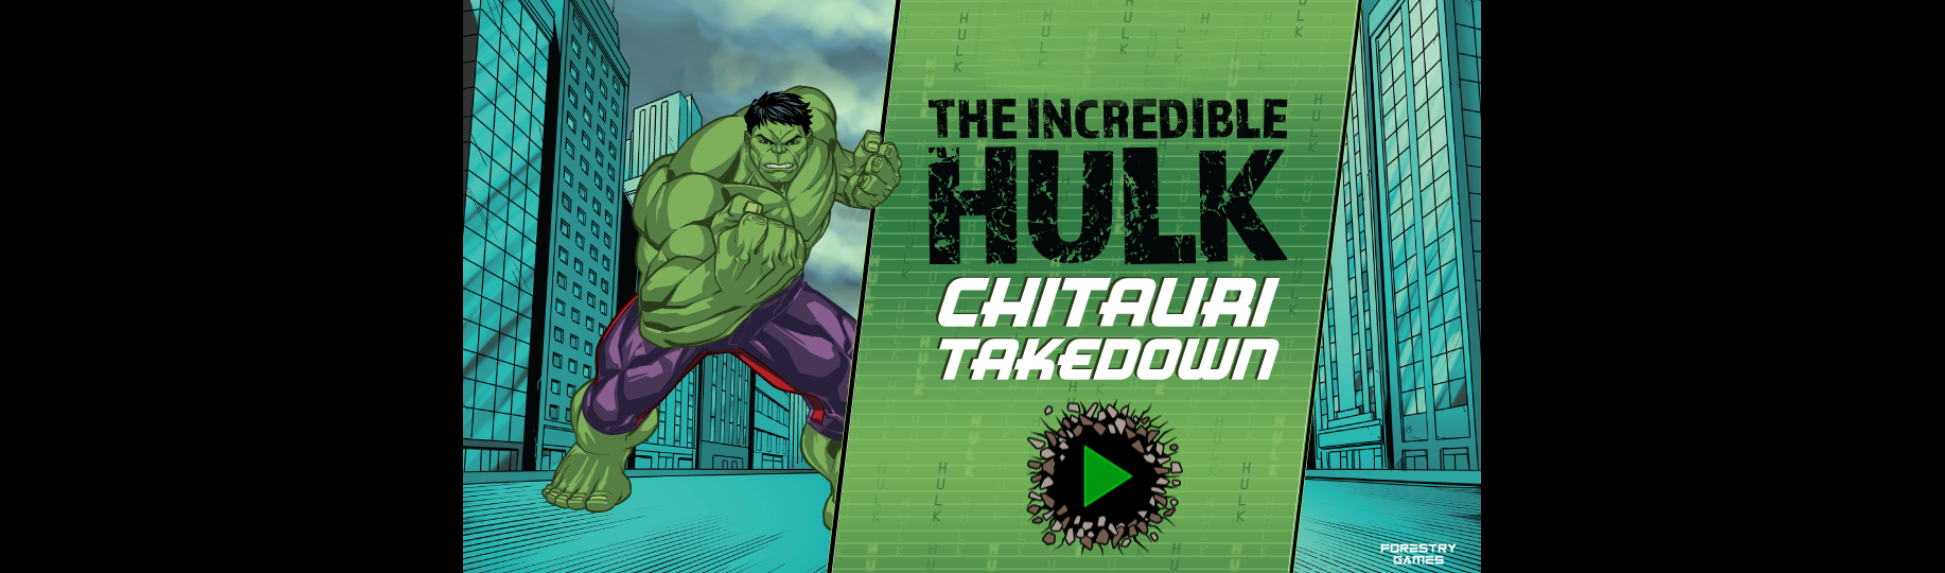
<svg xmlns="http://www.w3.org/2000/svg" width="1945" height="573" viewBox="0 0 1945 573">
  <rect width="100%" height="100%" fill="#000"/>
  <image x="463" y="0" width="1018" height="573" href="images/1.png"/>
</svg>
